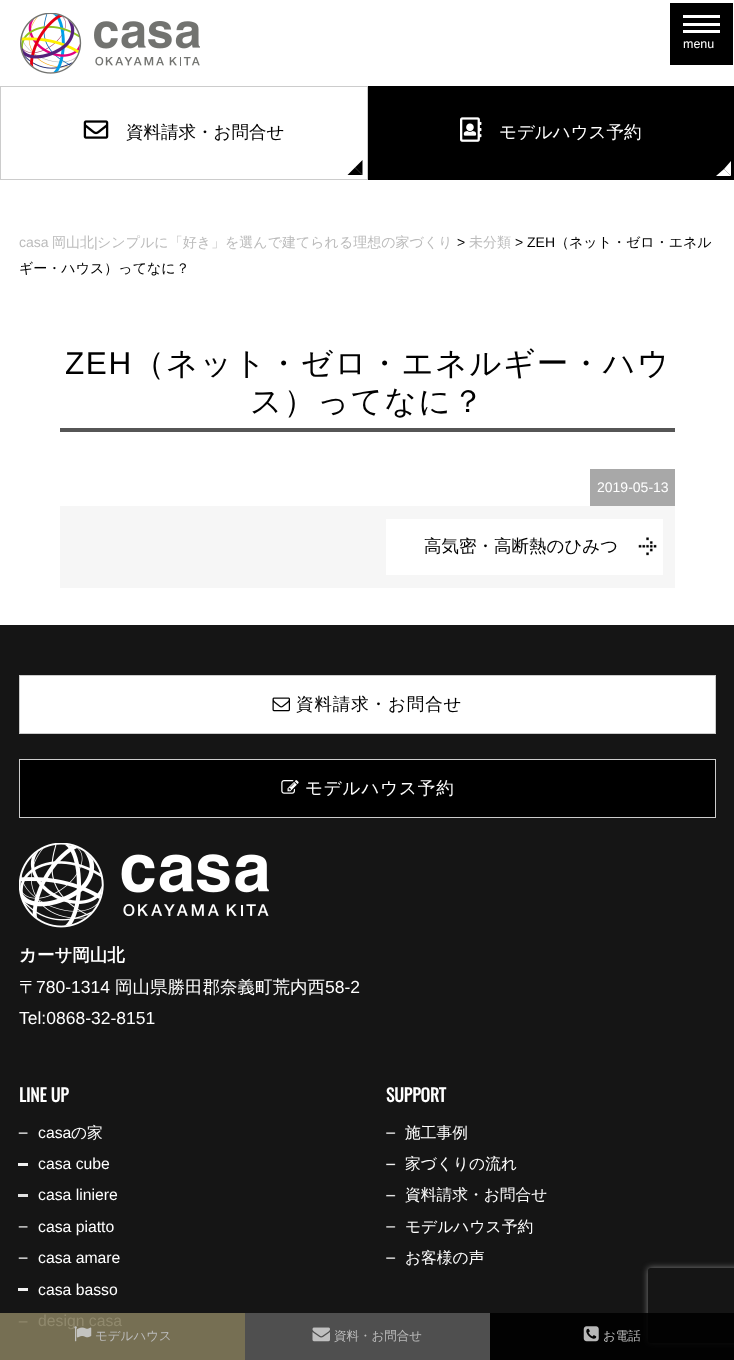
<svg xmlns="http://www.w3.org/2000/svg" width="734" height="1360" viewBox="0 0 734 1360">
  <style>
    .t1 { font: 12.5px Liberation Sans; fill: #fff; }
    .t2 { font: 500 17.5px WenQuanYi Zen Hei; fill: #000; }
    .t3 { font: 500 17.5px WenQuanYi Zen Hei; fill: #fff; }
    .t4 { font: 14px Liberation Sans; fill: #bbb; }
    .t5 { font: 500 14px WenQuanYi Zen Hei; fill: #bbb; }
    .t6 { font: 14px Liberation Sans; fill: #000; }
    .t7 { font: 500 14px WenQuanYi Zen Hei; fill: #000; }
    .t8 { font: 31.5px Liberation Sans; letter-spacing: 1.6px; fill: #000; }
    .t9 { font: 500 31.5px WenQuanYi Zen Hei; letter-spacing: 1.6px; fill: #000; }
    .t10 { font: 14px Liberation Sans; fill: #fff; }
    .t11 { font: 500 17.5px WenQuanYi Zen Hei; letter-spacing: 0.9px; fill: #000; }
    .t12 { font: 500 17.5px WenQuanYi Zen Hei; letter-spacing: 0.9px; fill: #fff; }
    .t13 { font: bold 17.5px WenQuanYi Zen Hei; fill: #fff; }
    .t14 { font: 17.5px Liberation Sans; fill: #fff; }
    .t15 { font: bold 17.5px Oswald; fill: #fff; }
    .t16 { font: 15.75px Liberation Sans; fill: #fff; }
    .t17 { font: 500 15.75px WenQuanYi Zen Hei; fill: #fff; }
    .t18 { font: 15.75px Liberation Sans; fill: #90896d; }
    .t19 { font: 500 12.5px WenQuanYi Zen Hei; fill: #bbb; }
  </style>
  <defs>
    <clipPath id="clip1"><path d="M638 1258H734V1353H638ZM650.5 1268H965.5C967 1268 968 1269 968 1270.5V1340.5C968 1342 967 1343 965.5 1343H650.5C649 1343 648 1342 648 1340.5V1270.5C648 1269 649 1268 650.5 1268Z" clip-rule="evenodd"/></clipPath>
  </defs>
  <rect width="100%" height="100%" fill="#fff"/>
  <image x="20" y="13" width="180" height="61" href="images/1.png"/>
  <rect x="670" y="3" width="63" height="62" fill="#000"/>
  <rect x="683" y="15" width="37" height="3" fill="#fff"/>
  <rect x="683" y="23" width="37" height="3" fill="#fff"/>
  <rect x="683" y="30" width="37" height="3" fill="#fff"/>
  <text x="683" y="48" class="t1">menu</text>
  <rect x="0.5" y="86.5" width="367" height="93" fill="none" stroke="#ccc"/>
  <image x="83" y="120" width="26" height="19" href="images/2.png"/>
  <text x="126" y="138" class="t2">資料請求・お問合せ</text>
  <path d="M362.5 160V175L355 167.5Z" fill="#000"/>
  <path d="M362.5 175H347.5L355 167.5Z" fill="#000"/>
  <rect x="368" y="86" width="366" height="94" fill="#000"/>
  <image x="460" y="117" width="22" height="25" href="images/3.png"/>
  <text x="499" y="138" class="t3">モデルハウス予約</text>
  <path d="M731 161V176L724 169Z" fill="#fff"/>
  <path d="M731 176H716L724 169Z" fill="#fff"/>
  <text x="19" y="247" class="t4">casa</text>
  <text x="52" y="247" class="t5">岡山北</text>
  <text x="94" y="247" class="t4">|</text>
  <text x="97" y="247" class="t5">シンプルに「好き」を選んで建てられる理想の家づくり</text>
  <text x="457" y="247" class="t6">&gt;</text>
  <text x="469" y="247" class="t5">未分類</text>
  <text x="515" y="247" class="t6">&gt; ZEH</text>
  <text x="555" y="247" class="t7">（ネット・ゼロ・エネル</text>
  <text x="19" y="273" class="t7">ギー・ハウス）ってなに？</text>
  <rect x="60" y="428" width="615" height="4" fill="#565656"/>
  <text x="65" y="374" class="t8">ZEH</text>
  <text x="133" y="374" class="t9">（ネット・ゼロ・エネルギー・ハウ</text>
  <text x="250" y="412" class="t9">ス）ってなに？</text>
  <rect x="590" y="469" width="85" height="37" fill="#a8a8a8"/>
  <text x="597" y="492" class="t10">2019-05-13</text>
  <rect x="60" y="506" width="615" height="82" fill="#f6f6f6"/>
  <rect x="386" y="519" width="277" height="56" fill="#fff"/>
  <image x="638" y="537" width="19" height="19" href="images/4.png"/>
  <text x="424" y="552" class="t2">高気密・高断熱のひみつ</text>
  <rect x="0" y="625" width="734" height="735" fill="#151515"/>
  <rect x="0" y="1313" width="245" height="47" fill="#766f53"/>
  <rect x="19.5" y="675.5" width="696" height="58" fill="#fff" stroke="#ccc"/>
  <image x="272" y="697" width="18" height="15" href="images/5.png"/>
  <text x="296" y="710" class="t11">資料請求・お問合せ</text>
  <rect x="19.5" y="759.5" width="696" height="58" fill="#000" stroke="#ccc"/>
  <image x="281" y="780" width="18" height="14" href="images/6.png"/>
  <text x="305" y="794" class="t12">モデルハウス予約</text>
  <image x="19" y="843" width="250" height="85" href="images/7.png"/>
  <text x="19" y="961" class="t13">カーサ岡山北</text>
  <text x="19" y="993" class="t3">〒</text>
  <text x="36" y="993" class="t14">780-1314</text>
  <text x="115" y="993" class="t3">岡山県勝田郡奈義町荒内西</text>
  <text x="325" y="993" class="t14">58-2</text>
  <text x="19" y="1024" class="t14">Tel:0868-32-8151</text>
  <text x="19" y="1102" class="t15">LINE UP</text>
  <image x="18" y="1132" width="10" height="2" href="images/8.png"/>
  <text x="38" y="1138" class="t16">casa</text>
  <text x="71" y="1138" class="t17">の家</text>
  <text x="38" y="1169" class="t16">casa cube</text>
  <rect x="18" y="1163" width="10" height="3" fill="#f1f1f1"/>
  <text x="38" y="1200" class="t16">casa liniere</text>
  <rect x="18" y="1194" width="10" height="3" fill="#e1e1e1"/>
  <image x="18" y="1226" width="10" height="2" href="images/9.png"/>
  <text x="38" y="1232" class="t16">casa piatto</text>
  <image x="18" y="1257" width="10" height="2" href="images/8.png"/>
  <text x="38" y="1263" class="t16">casa amare</text>
  <text x="38" y="1295" class="t16">casa basso</text>
  <rect x="18" y="1288" width="10" height="3" fill="#f1f1f1"/>
  <image x="18" y="1321" width="10" height="2" href="images/10.png"/>
  <text x="38" y="1326" class="t18">design casa</text>
  <text x="386" y="1102" class="t15">SUPPORT</text>
  <image x="386" y="1132" width="10" height="2" href="images/11.png"/>
  <text x="405" y="1138" class="t17">施工事例</text>
  <image x="386" y="1163" width="10" height="3" href="images/12.png"/>
  <text x="405" y="1169" class="t17">家づくりの流れ</text>
  <image x="386" y="1194" width="10" height="3" href="images/13.png"/>
  <text x="405" y="1200" class="t17">資料請求・お問合せ</text>
  <image x="386" y="1226" width="10" height="2" href="images/14.png"/>
  <text x="405" y="1232" class="t17">モデルハウス予約</text>
  <image x="386" y="1257" width="10" height="2" href="images/11.png"/>
  <text x="405" y="1263" class="t17">お客様の声</text>
  <g clip-path="url(#clip1)">
    <rect x="648" y="1268" width="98" height="75" rx="2.5" fill="#808080" filter="blur(3px)"/>
  </g>
  <image x="74" y="1326" width="18" height="16" href="images/15.png"/>
  <text x="95" y="1340" class="t19">モデルハウス</text>
  <rect x="245" y="1313" width="245" height="47" fill="#4f4f4f"/>
  <image x="312" y="1327" width="18" height="15" href="images/16.png"/>
  <text x="334" y="1340" class="t19">資料・お問合せ</text>
  <rect x="490" y="1313" width="244" height="47" fill="#000000e3"/>
  <image x="583" y="1326" width="16" height="16" href="images/17.png"/>
  <text x="603" y="1340" class="t19">お電話</text>
</svg>
